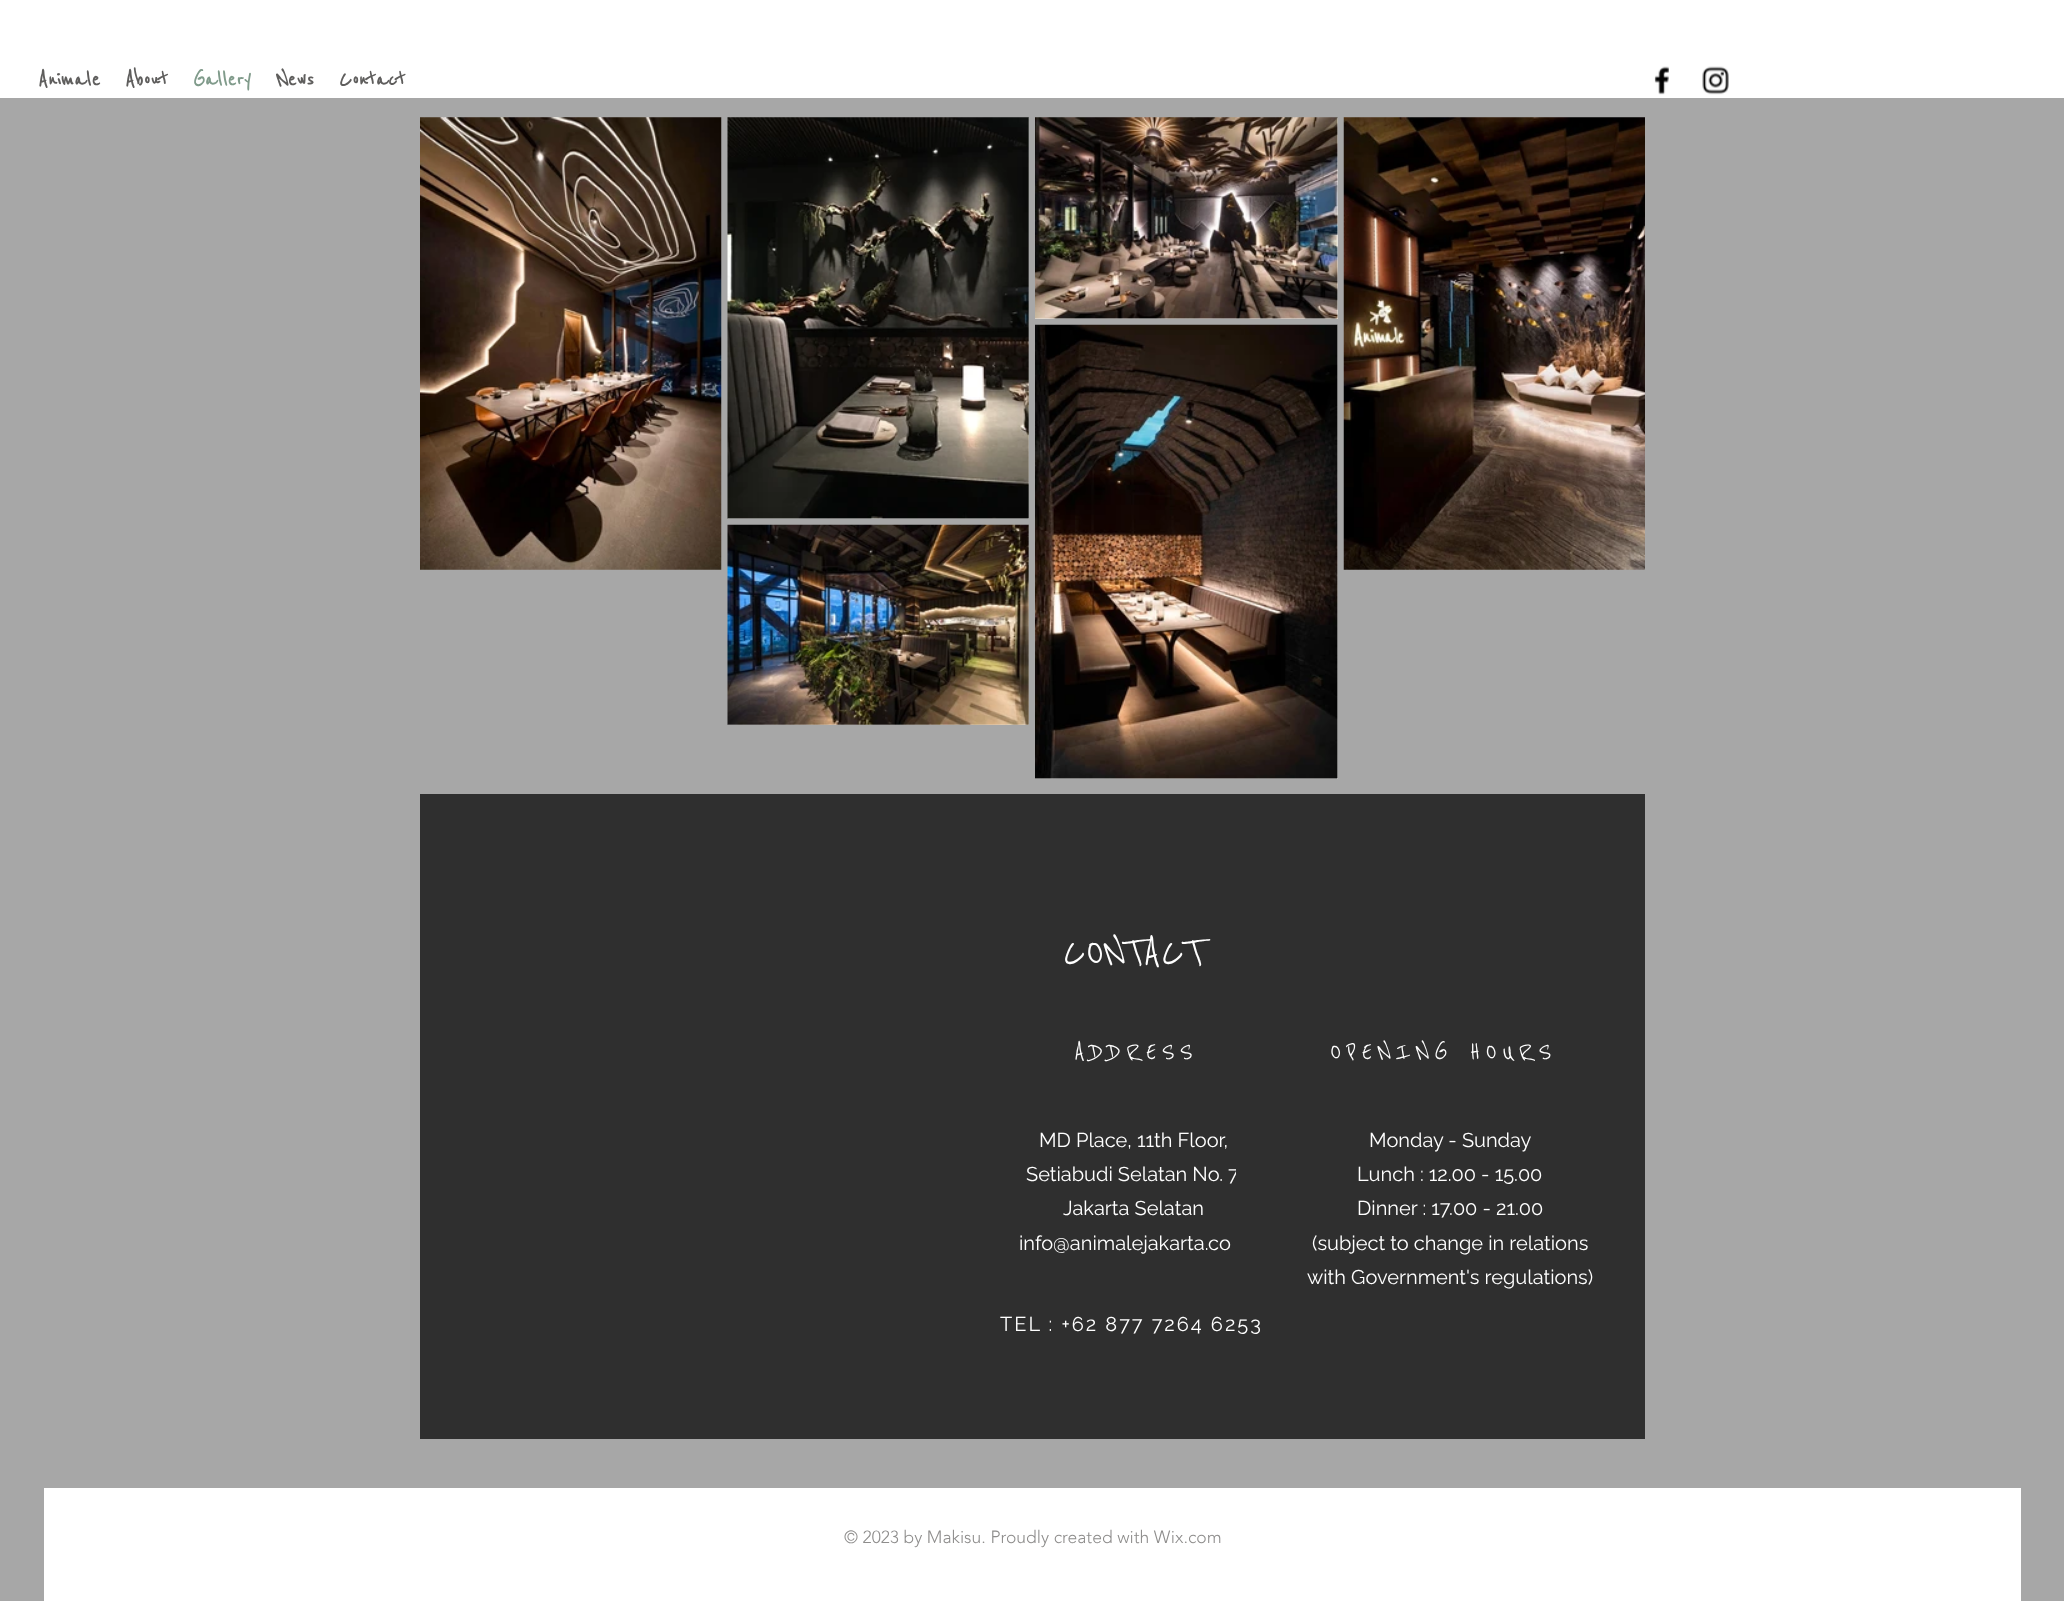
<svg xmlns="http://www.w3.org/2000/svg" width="2064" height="1601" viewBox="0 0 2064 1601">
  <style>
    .t1 { font: bold 25px Reenie Beanie; fill: #5f5e5d; }
    .t2 { font: bold 25px Reenie Beanie; fill: #809b8b; }
    .t3 { font: 500 44px Reenie Beanie; fill: #fff; }
    .t4 { font: 500 27.5px Reenie Beanie; letter-spacing: 5.5px; fill: #fff; }
    .t5 { font: 20px Raleway; fill: #fff; }
    .t6 { font: 20px Raleway; letter-spacing: 2px; fill: #fff; }
    .t7 { font: 300 17.5px 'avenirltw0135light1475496'; fill: #8e8d8c; }
  </style>
  <rect width="100%" height="100%" fill="#a7a7a7"/>
  <rect x="0" y="0" width="2064" height="98" fill="#fff"/>
  <image x="1654" y="66" width="15" height="29" href="images/1.png"/>
  <image x="1702" y="66" width="27" height="29" href="images/2.png"/>
  <text x="38" y="86" class="t1">Animale</text>
  <text x="125" y="86" class="t1">About</text>
  <text x="193" y="86" class="t2">Gallery</text>
  <text x="276" y="86" class="t1">News</text>
  <text x="339" y="86" class="t1">Contact</text>
  <image x="420" y="117" width="302" height="453" href="images/3.png"/>
  <rect x="728" y="118" width="301" height="401" fill="#ebebe8"/>
  <image x="727" y="117" width="302" height="402" href="images/4.png"/>
  <rect x="1035" y="118" width="303" height="201" fill="#ebebe8"/>
  <image x="1035" y="117" width="303" height="202" href="images/5.png"/>
  <image x="1343" y="117" width="302" height="453" href="images/6.png"/>
  <rect x="728" y="525" width="301" height="200" fill="#ebebe8"/>
  <image x="727" y="524" width="302" height="201" href="images/7.png"/>
  <rect x="1035" y="325" width="303" height="454" fill="#ebebe8"/>
  <image x="1035" y="324" width="303" height="455" href="images/8.png"/>
  <rect x="420" y="794" width="816" height="645" fill="#2f2f2f"/>
  <text x="1063" y="964" class="t3">CONTACT</text>
  <text x="1074" y="1059" class="t4">ADDRESS</text>
  <text x="1039" y="1147" class="t5">MD Place, 11th Floor,</text>
  <text x="1026" y="1181" class="t5">Setiabudi Selatan No. 7</text>
  <text x="1063" y="1215" class="t5">Jakarta Selatan</text>
  <text x="1019" y="1250" class="t5">info@animalejakarta.co</text>
  <rect x="1236" y="794" width="409" height="645" fill="#2f2f2f"/>
  <text x="1330" y="1059" class="t4">OPENING HOURS</text>
  <text x="1369" y="1147" class="t5">Monday - Sunday</text>
  <text x="1357" y="1181" class="t5">Lunch : 12.00 - 15.00</text>
  <text x="1357" y="1215" class="t5">Dinner : 17.00 - 21.00</text>
  <text x="1312" y="1250" class="t5">(subject to change in relations</text>
  <text x="1307" y="1284" class="t5">with Government's regulations)</text>
  <text x="1000" y="1331" class="t6">TEL : +62 877 7264 6253</text>
  <rect x="44" y="1488" width="1977" height="113" fill="#fff"/>
  <text x="844" y="1543" class="t7">© 2023 by Makisu. Proudly created with Wix.com</text>
</svg>
